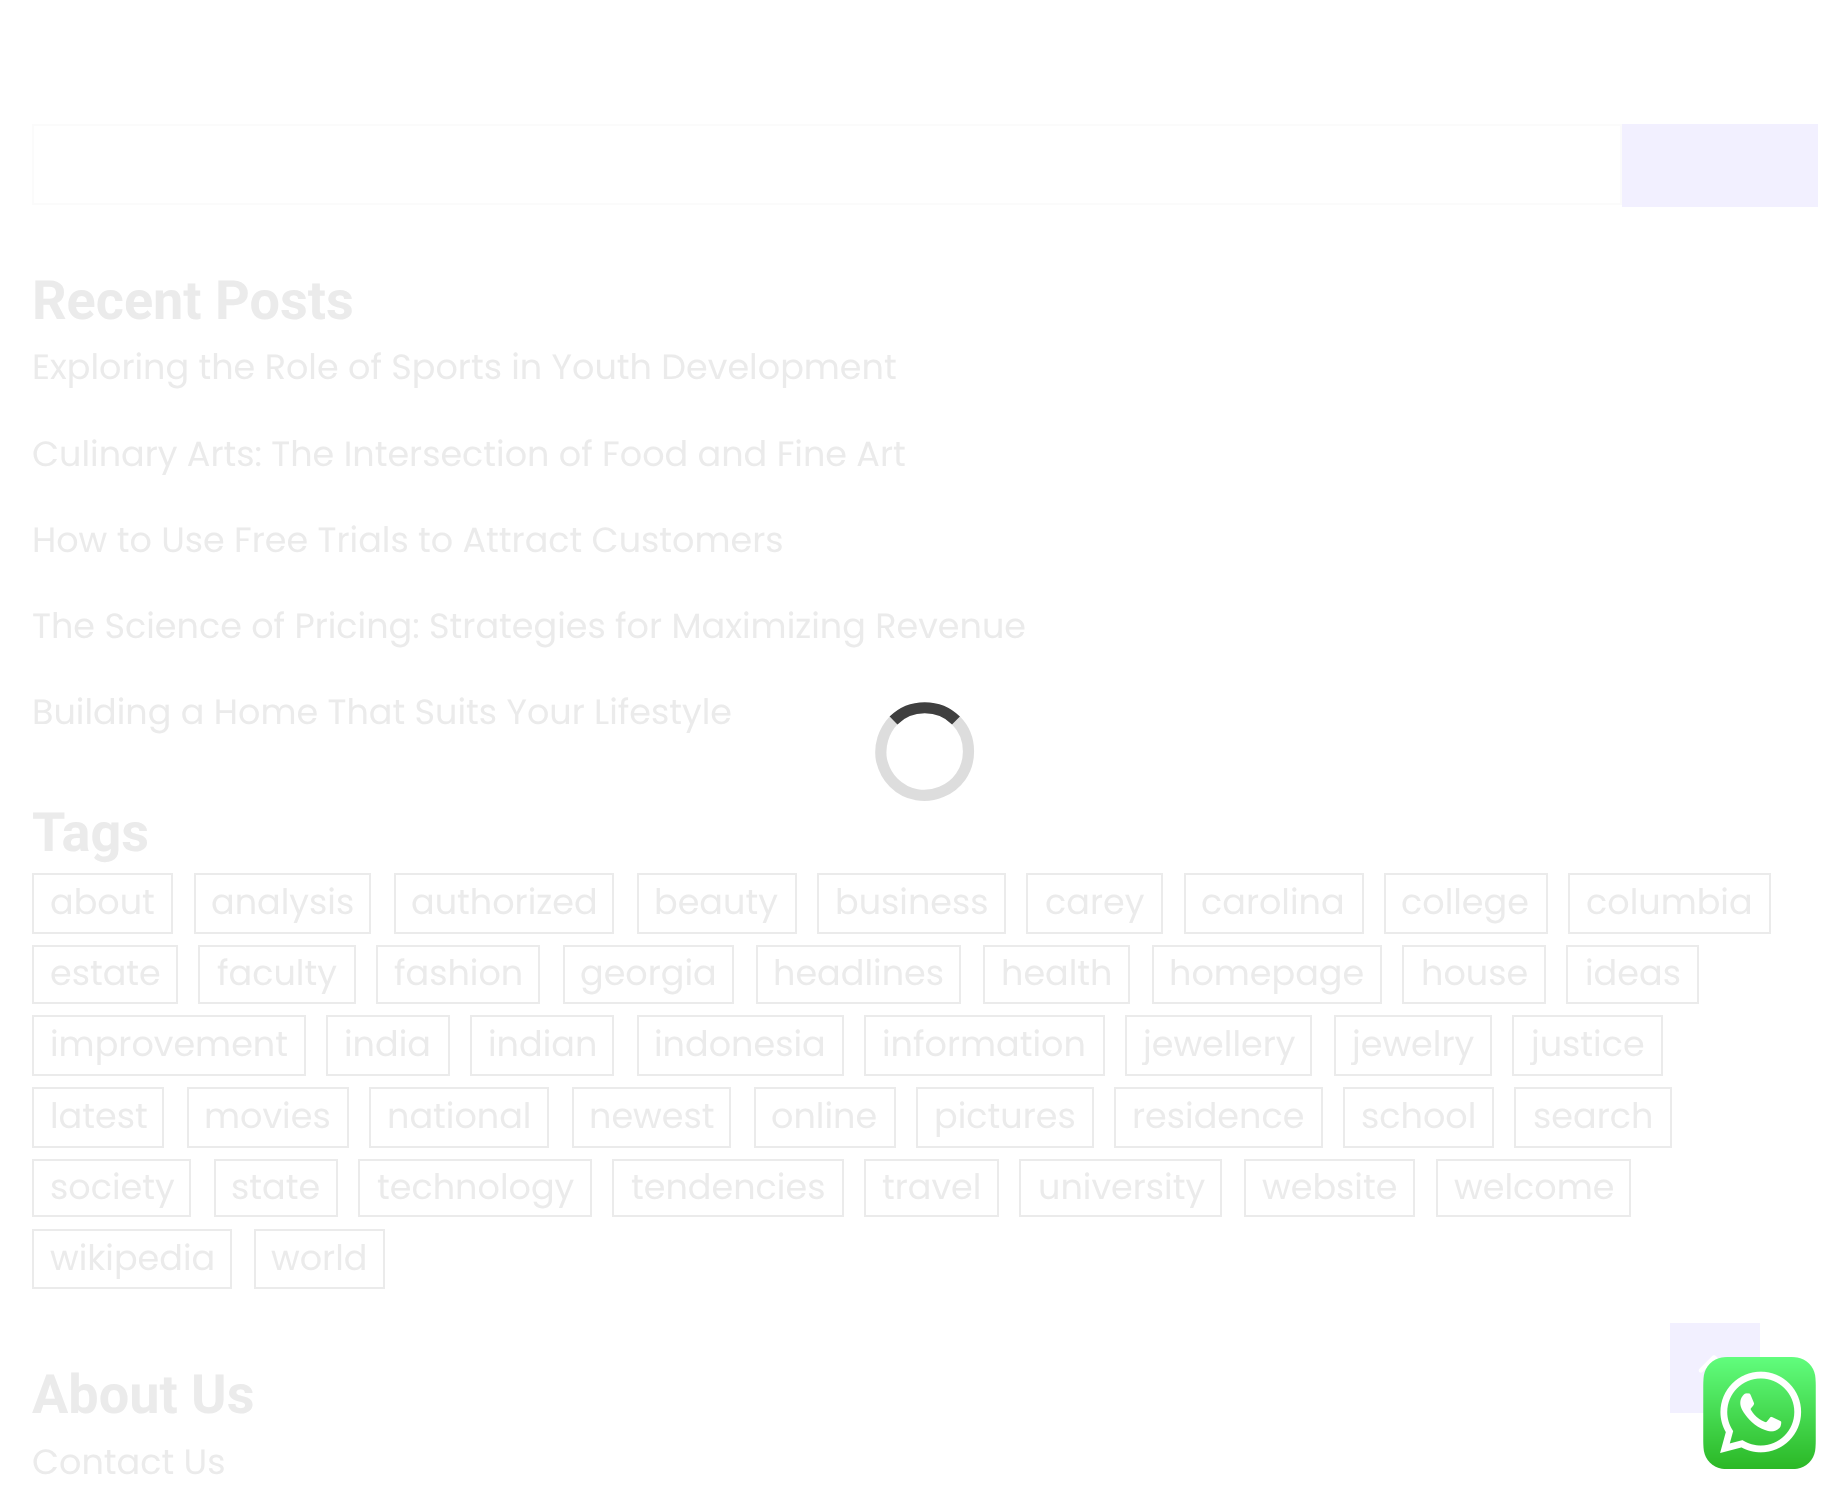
<svg xmlns="http://www.w3.org/2000/svg" width="1848" height="1502" viewBox="0 0 1848 1502">
  <style>
    .t1 { font: bold 54px Roboto; fill: #ebebeb; }
    .t2 { font: 35px Poppins; fill: #ebebeb; }
  </style>
  <rect width="100%" height="100%" fill="#fff"/>
  <rect x="33" y="125" width="1588" height="79" fill="none" stroke="#fbfbfb" stroke-width="2"/>
  <rect x="1622" y="124" width="196" height="83" fill="#f2f0ff"/>
  <text x="32" y="319" class="t1">Recent Posts</text>
  <text x="32" y="379" class="t2">Exploring the Role of Sports in Youth Development</text>
  <text x="32" y="466" class="t2">Culinary Arts: The Intersection of Food and Fine Art</text>
  <text x="32" y="552" class="t2">How to Use Free Trials to Attract Customers</text>
  <text x="32" y="638" class="t2">The Science of Pricing: Strategies for Maximizing Revenue</text>
  <text x="32" y="724" class="t2">Building a Home That Suits Your Lifestyle</text>
  <text x="32" y="851" class="t1">Tags</text>
  <rect x="33" y="874" width="139" height="59" fill="none" stroke="#ebebeb" stroke-width="2"/>
  <text x="50" y="914" class="t2">about</text>
  <rect x="195" y="874" width="175" height="59" fill="none" stroke="#ebebeb" stroke-width="2"/>
  <text x="211" y="914" class="t2">analysis</text>
  <rect x="395" y="874" width="218" height="59" fill="none" stroke="#ebebeb" stroke-width="2"/>
  <text x="411" y="914" class="t2">authorized</text>
  <rect x="638" y="874" width="158" height="59" fill="none" stroke="#ebebeb" stroke-width="2"/>
  <text x="654" y="914" class="t2">beauty</text>
  <rect x="818" y="874" width="187" height="59" fill="none" stroke="#ebebeb" stroke-width="2"/>
  <text x="835" y="914" class="t2">business</text>
  <rect x="1027" y="874" width="135" height="59" fill="none" stroke="#ebebeb" stroke-width="2"/>
  <text x="1045" y="914" class="t2">carey</text>
  <rect x="1185" y="874" width="178" height="59" fill="none" stroke="#ebebeb" stroke-width="2"/>
  <text x="1201" y="914" class="t2">carolina</text>
  <rect x="1385" y="874" width="162" height="59" fill="none" stroke="#ebebeb" stroke-width="2"/>
  <text x="1401" y="914" class="t2">college</text>
  <rect x="1569" y="874" width="201" height="59" fill="none" stroke="#ebebeb" stroke-width="2"/>
  <text x="1586" y="914" class="t2">columbia</text>
  <rect x="33" y="946" width="144" height="57" fill="none" stroke="#ebebeb" stroke-width="2"/>
  <text x="50" y="985" class="t2">estate</text>
  <rect x="199" y="946" width="156" height="57" fill="none" stroke="#ebebeb" stroke-width="2"/>
  <text x="217" y="985" class="t2">faculty</text>
  <rect x="377" y="946" width="162" height="57" fill="none" stroke="#ebebeb" stroke-width="2"/>
  <text x="394" y="985" class="t2">fashion</text>
  <rect x="564" y="946" width="169" height="57" fill="none" stroke="#ebebeb" stroke-width="2"/>
  <text x="580" y="985" class="t2">georgia</text>
  <rect x="757" y="946" width="203" height="57" fill="none" stroke="#ebebeb" stroke-width="2"/>
  <text x="773" y="985" class="t2">headlines</text>
  <rect x="984" y="946" width="145" height="57" fill="none" stroke="#ebebeb" stroke-width="2"/>
  <text x="1001" y="985" class="t2">health</text>
  <rect x="1153" y="946" width="228" height="57" fill="none" stroke="#ebebeb" stroke-width="2"/>
  <text x="1169" y="985" class="t2">homepage</text>
  <rect x="1403" y="946" width="142" height="57" fill="none" stroke="#ebebeb" stroke-width="2"/>
  <text x="1421" y="985" class="t2">house</text>
  <rect x="1567" y="946" width="131" height="57" fill="none" stroke="#ebebeb" stroke-width="2"/>
  <text x="1585" y="985" class="t2">ideas</text>
  <rect x="33" y="1016" width="272" height="59" fill="none" stroke="#ebebeb" stroke-width="2"/>
  <text x="50" y="1056" class="t2">improvement</text>
  <rect x="327" y="1016" width="122" height="59" fill="none" stroke="#ebebeb" stroke-width="2"/>
  <text x="344" y="1056" class="t2">india</text>
  <rect x="471" y="1016" width="142" height="59" fill="none" stroke="#ebebeb" stroke-width="2"/>
  <text x="488" y="1056" class="t2">indian</text>
  <rect x="638" y="1016" width="205" height="59" fill="none" stroke="#ebebeb" stroke-width="2"/>
  <text x="654" y="1056" class="t2">indonesia</text>
  <rect x="865" y="1016" width="239" height="59" fill="none" stroke="#ebebeb" stroke-width="2"/>
  <text x="882" y="1056" class="t2">information</text>
  <rect x="1126" y="1016" width="185" height="59" fill="none" stroke="#ebebeb" stroke-width="2"/>
  <text x="1143" y="1056" class="t2">jewellery</text>
  <rect x="1335" y="1016" width="156" height="59" fill="none" stroke="#ebebeb" stroke-width="2"/>
  <text x="1352" y="1056" class="t2">jewelry</text>
  <rect x="1513" y="1016" width="149" height="59" fill="none" stroke="#ebebeb" stroke-width="2"/>
  <text x="1531" y="1056" class="t2">justice</text>
  <rect x="33" y="1088" width="130" height="59" fill="none" stroke="#ebebeb" stroke-width="2"/>
  <text x="50" y="1128" class="t2">latest</text>
  <rect x="188" y="1088" width="160" height="59" fill="none" stroke="#ebebeb" stroke-width="2"/>
  <text x="204" y="1128" class="t2">movies</text>
  <rect x="370" y="1088" width="178" height="59" fill="none" stroke="#ebebeb" stroke-width="2"/>
  <text x="387" y="1128" class="t2">national</text>
  <rect x="573" y="1088" width="157" height="59" fill="none" stroke="#ebebeb" stroke-width="2"/>
  <text x="589" y="1128" class="t2">newest</text>
  <rect x="755" y="1088" width="140" height="59" fill="none" stroke="#ebebeb" stroke-width="2"/>
  <text x="771" y="1128" class="t2">online</text>
  <rect x="917" y="1088" width="176" height="59" fill="none" stroke="#ebebeb" stroke-width="2"/>
  <text x="934" y="1128" class="t2">pictures</text>
  <rect x="1115" y="1088" width="207" height="59" fill="none" stroke="#ebebeb" stroke-width="2"/>
  <text x="1132" y="1128" class="t2">residence</text>
  <rect x="1344" y="1088" width="149" height="59" fill="none" stroke="#ebebeb" stroke-width="2"/>
  <text x="1361" y="1128" class="t2">school</text>
  <rect x="1515" y="1088" width="156" height="59" fill="none" stroke="#ebebeb" stroke-width="2"/>
  <text x="1533" y="1128" class="t2">search</text>
  <rect x="33" y="1160" width="157" height="56" fill="none" stroke="#ebebeb" stroke-width="2"/>
  <text x="50" y="1199" class="t2">society</text>
  <rect x="215" y="1160" width="122" height="56" fill="none" stroke="#ebebeb" stroke-width="2"/>
  <text x="231" y="1199" class="t2">state</text>
  <rect x="359" y="1160" width="232" height="56" fill="none" stroke="#ebebeb" stroke-width="2"/>
  <text x="377" y="1199" class="t2">technology</text>
  <rect x="613" y="1160" width="230" height="56" fill="none" stroke="#ebebeb" stroke-width="2"/>
  <text x="631" y="1199" class="t2">tendencies</text>
  <rect x="865" y="1160" width="133" height="56" fill="none" stroke="#ebebeb" stroke-width="2"/>
  <text x="882" y="1199" class="t2">travel</text>
  <rect x="1020" y="1160" width="201" height="56" fill="none" stroke="#ebebeb" stroke-width="2"/>
  <text x="1038" y="1199" class="t2">university</text>
  <rect x="1245" y="1160" width="169" height="56" fill="none" stroke="#ebebeb" stroke-width="2"/>
  <text x="1262" y="1199" class="t2">website</text>
  <rect x="1437" y="1160" width="193" height="56" fill="none" stroke="#ebebeb" stroke-width="2"/>
  <text x="1454" y="1199" class="t2">welcome</text>
  <rect x="33" y="1230" width="198" height="58" fill="none" stroke="#ebebeb" stroke-width="2"/>
  <text x="50" y="1270" class="t2">wikipedia</text>
  <rect x="255" y="1230" width="129" height="58" fill="none" stroke="#ebebeb" stroke-width="2"/>
  <text x="271" y="1270" class="t2">world</text>
  <text x="32" y="1413" class="t1">About Us</text>
  <text x="32" y="1474" class="t2">Contact Us</text>
  <path d="M893.5 720.5C910.5 703.5 939 703.5 956 720.5" fill="none" stroke="#3f3f3f" stroke-width="11.2"/>
  <path d="M956 720.5C964 728.5 968.5 740 968.5 751.5C968.5 790.5 921 810 893.5 782.5C887.5 776.5 883.5 768.5 881.5 760C879 746 883.5 731 893.5 720.5" fill="none" stroke="#55555533" stroke-width="11.2"/>
  <rect x="1670" y="1323" width="90" height="90" fill="#f2f0ff"/>
  <image x="1698" y="1355" width="21" height="18" href="images/1.png"/>
  <image x="1703" y="1357" width="113" height="112" href="images/2.png"/>
</svg>
